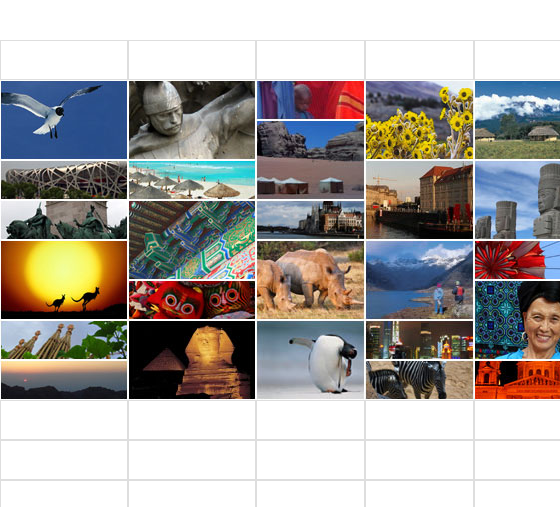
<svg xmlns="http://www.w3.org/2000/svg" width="560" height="507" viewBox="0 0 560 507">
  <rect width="100%" height="100%" fill="#fff"/>
  <image x="0" y="40" width="256" height="400" href="images/1.png"/>
  <image x="0" y="80" width="128" height="80" href="images/2.png"/>
  <image x="0" y="160" width="128" height="40" href="images/3.png"/>
  <image x="0" y="200" width="128" height="40" href="images/4.png"/>
  <image x="0" y="240" width="128" height="80" href="images/5.png"/>
  <image x="0" y="320" width="128" height="40" href="images/6.png"/>
  <image x="0" y="360" width="128" height="40" href="images/7.png"/>
  <image x="128" y="80" width="128" height="80" href="images/8.png"/>
  <image x="128" y="160" width="128" height="40" href="images/9.png"/>
  <image x="128" y="200" width="128" height="80" href="images/10.png"/>
  <image x="128" y="280" width="128" height="40" href="images/11.png"/>
  <image x="128" y="320" width="128" height="80" href="images/12.png"/>
  <image x="256" y="40" width="218" height="400" href="images/13.png"/>
  <image x="256" y="80" width="109" height="40" href="images/14.png"/>
  <image x="256" y="120" width="109" height="80" href="images/15.png"/>
  <image x="256" y="200" width="109" height="40" href="images/16.png"/>
  <image x="256" y="240" width="109" height="80" href="images/17.png"/>
  <image x="256" y="320" width="109" height="80" href="images/18.png"/>
  <image x="365" y="80" width="109" height="80" href="images/19.png"/>
  <image x="365" y="160" width="109" height="80" href="images/20.png"/>
  <image x="365" y="240" width="109" height="80" href="images/21.png"/>
  <image x="365" y="320" width="109" height="40" href="images/22.png"/>
  <image x="365" y="360" width="109" height="40" href="images/23.png"/>
  <image x="474" y="40" width="86" height="400" href="images/24.png"/>
  <image x="474" y="80" width="86" height="80" href="images/25.png"/>
  <image x="474" y="160" width="86" height="80" href="images/26.png"/>
  <image x="474" y="240" width="86" height="40" href="images/27.png"/>
  <image x="474" y="280" width="86" height="80" href="images/28.png"/>
  <image x="474" y="360" width="86" height="40" href="images/29.png"/>
  <image x="0" y="440" width="560" height="67" href="images/30.png"/>
</svg>
